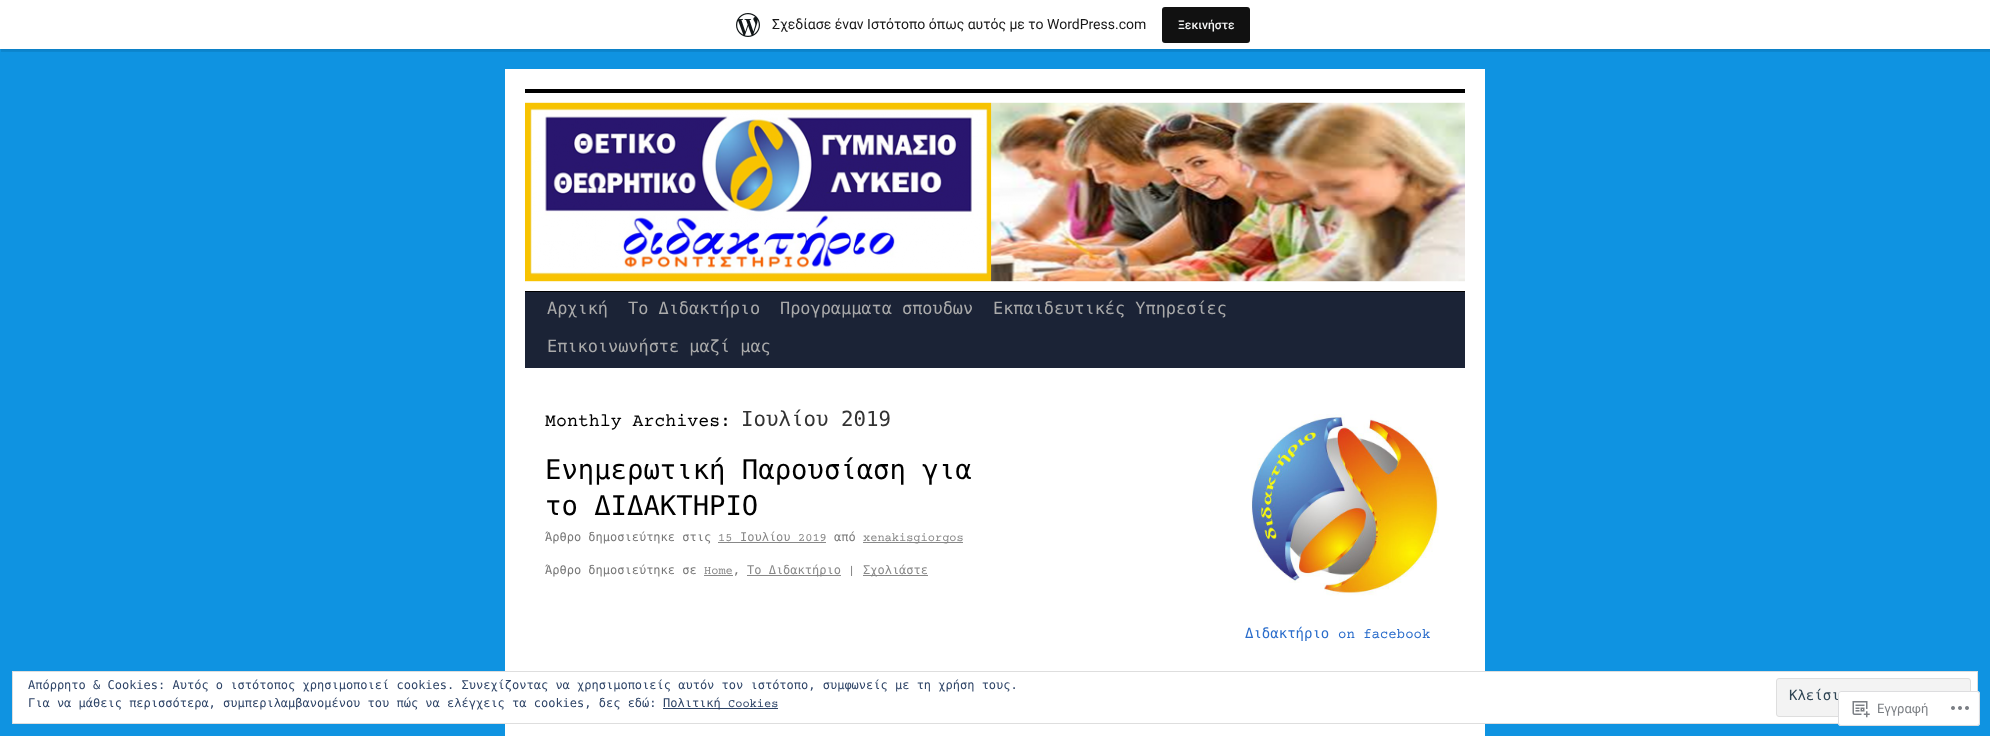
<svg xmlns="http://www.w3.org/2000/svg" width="1990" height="736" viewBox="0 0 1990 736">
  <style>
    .t1 { font: 14px Roboto; fill: #171717; }
    .t2 { font: 500 12px Roboto; fill: #f6f7f7; }
    .t3 { font: 16.9px DejaVu Sans Mono; fill: #aaa; }
    .t4 { font: 18.25px Courier Prime; fill: #000; }
    .t5 { font: 20.75px DejaVu Sans Mono; fill: #333; }
    .t6 { font: 27.25px DejaVu Sans Mono; fill: #000; }
    .t7 { font: 12px DejaVu Sans Mono; fill: #777; }
    .t8 { font: 12px Courier Prime; fill: #888; }
    .t9 { font: 12px DejaVu Sans Mono; fill: #888; }
    .t10 { font: 12px Courier Prime; fill: #777; }
    .t11 { font: 14px DejaVu Sans Mono; fill: #296ccb; }
    .t12 { font: 14px Courier Prime; fill: #296ccb; }
    .t13 { font: 12px DejaVu Sans Mono; fill: #2e4467; }
    .t14 { font: 14px DejaVu Sans Mono; fill: #2e4453; }
    .t15 { font: 12px Courier Prime; fill: #2e4467; }
    .t16 { font: 13px Roboto; fill: #7b7f84; }
  </style>
  <rect width="100%" height="100%" fill="#0f93e1"/>
  <rect x="0" y="1" width="1990" height="49" fill="#0000000d" filter="blur(1px)"/>
  <path d="M1 49V52H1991V3H1990V49Z" fill="#00000014"/>
  <rect x="0" y="0" width="1990" height="49" fill="#fff"/>
  <image x="736" y="13" width="24" height="24" href="images/1.png"/>
  <text x="772" y="29" class="t1">Σχεδίασε έναν Ιστότοπο όπως αυτός με το WordPress.com</text>
  <rect x="1162" y="7" width="88" height="36" rx="3" fill="#111"/>
  <text x="1178" y="29" class="t2">Ξεκινήστε</text>
  <rect x="505" y="69" width="980" height="667" fill="#fff"/>
  <rect x="525" y="89" width="940" height="4" fill="#000"/>
  <rect x="525" y="291" width="940" height="1" fill="#000"/>
  <image x="525" y="102" width="940" height="180" href="images/2.png"/>
  <rect x="525" y="292" width="940" height="76" fill="#1b2336"/>
  <text x="547" y="314" class="t3">Αρχική</text>
  <text x="628" y="314" class="t3">Το Διδακτήριo</text>
  <text x="780" y="314" class="t3">Προγραμματα σπουδων</text>
  <text x="993" y="314" class="t3">Εκπαιδευτικές Υπηρεσίες</text>
  <text x="547" y="352" class="t3">Επικοινωνήστε μαζί μας</text>
  <text x="545" y="426" class="t4">Monthly Archives:</text>
  <text x="741" y="426" class="t5">Ιουλίου 2019</text>
  <text x="545" y="479" class="t6">Ενημερωτική Παρουσίαση για</text>
  <text x="545" y="515" class="t6">το ΔΙΔΑΚΤΗΡΙΟ</text>
  <text x="545" y="541" class="t7">Άρθρο δημοσιεύτηκε στις</text>
  <text x="718" y="541" class="t8">15</text>
  <rect x="718" y="542" width="108" height="1" fill="#888"/>
  <text x="740" y="541" class="t9">Ιουλίου</text>
  <text x="798" y="541" class="t8">2019</text>
  <text x="834" y="541" class="t7">από</text>
  <rect x="863" y="542" width="100" height="1" fill="#888"/>
  <text x="863" y="541" class="t8">xenakisgiorgos</text>
  <text x="545" y="574" class="t7">Άρθρο δημοσιεύτηκε σε</text>
  <text x="704" y="574" class="t8">Home</text>
  <text x="733" y="574" class="t10">,</text>
  <rect x="704" y="575" width="29" height="1" fill="#888"/>
  <rect x="747" y="575" width="94" height="1" fill="#888"/>
  <text x="747" y="574" class="t9">Το Διδακτήριο</text>
  <text x="848" y="574" class="t10">|</text>
  <rect x="863" y="575" width="65" height="1" fill="#888"/>
  <text x="863" y="574" class="t9">Σχολιάστε</text>
  <image x="1251" y="414" width="188" height="182" href="images/3.png"/>
  <text x="1245" y="638" class="t11">Διδακτήριο</text>
  <text x="1338" y="638" class="t12">on facebook</text>
  <rect x="12.5" y="671.5" width="1965" height="52" fill="#fff" stroke="#dedede"/>
  <text x="28" y="689" class="t13">Απόρρητο &amp; Cookies: Αυτός ο ιστότοπος χρησιμοποιεί cookies. Συνεχίζοντας να χρησιμοποιείς αυτόν τον ιστότοπο, συμφωνείς με τη χρήση τους.</text>
  <rect x="1776.5" y="678.5" width="194" height="38" rx="2.5" fill="#f3f3f3" stroke="#dedede"/>
  <text x="1789" y="700" class="t14">Κλείσι</text>
  <text x="28" y="707" class="t13">Για να μάθεις περισσότερα, συμπεριλαμβανομένου του πώς να ελέγχεις τα cookies, δες εδώ:</text>
  <rect x="663" y="708" width="115" height="1" fill="#2e4467"/>
  <text x="663" y="707" class="t13">Πολιτική</text>
  <text x="728" y="707" class="t15">Cookies</text>
  <rect x="1838" y="691" width="142" height="35" rx="3" fill="#fffffffa"/>
  <rect x="1838.5" y="691.5" width="141" height="34" rx="2.5" fill="none" stroke="#dcdcdefa"/>
  <image x="1852" y="701" width="18" height="17" href="images/4.png"/>
  <text x="1877" y="713" class="t16">Εγγραφή</text>
  <image x="1951" y="706" width="18" height="4" href="images/5.png"/>
</svg>
